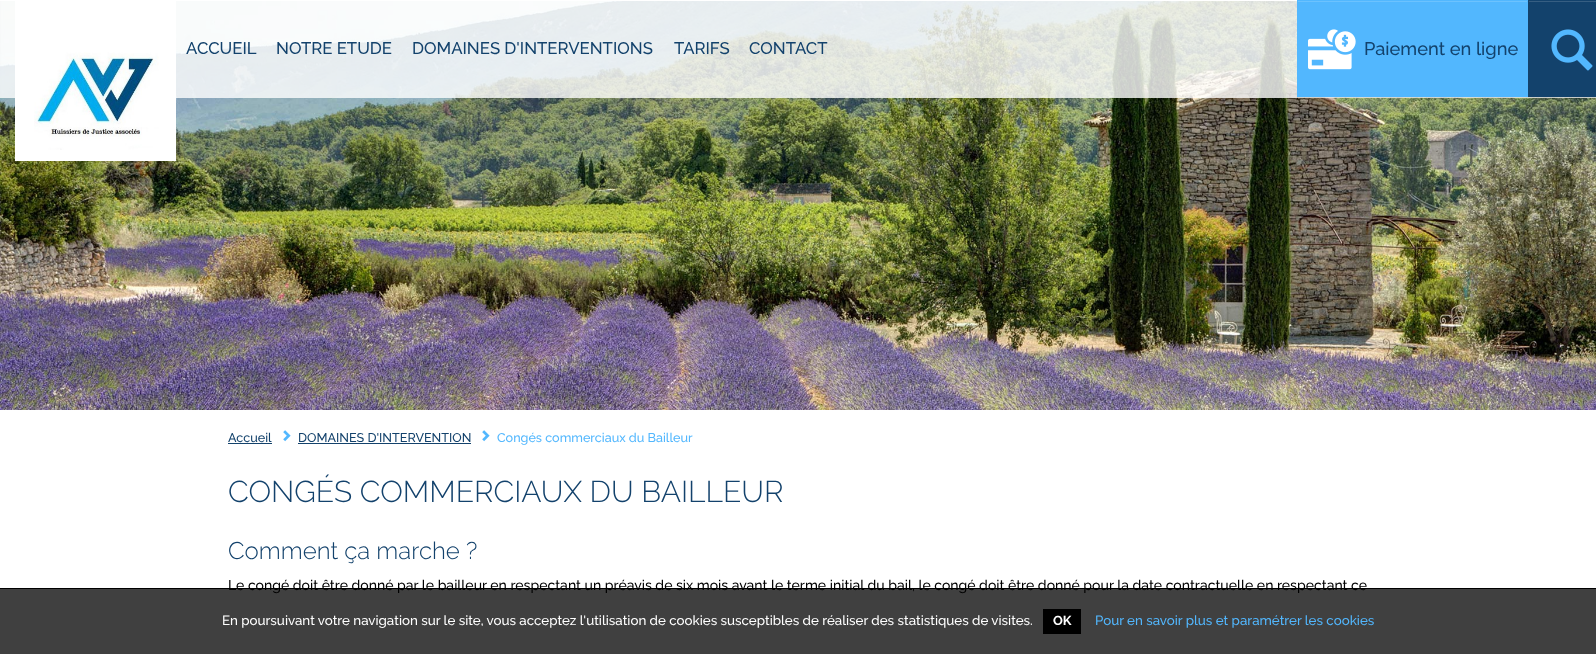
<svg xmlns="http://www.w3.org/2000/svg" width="1596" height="654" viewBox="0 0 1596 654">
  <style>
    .t1 { font: 500 16.75px Raleway; fill: #13426c; }
    .t2 { font: 500 18.25px Raleway; fill: #13426c; }
    .t3 { font: 500 12.6px Raleway; fill: #13426c; }
    .t4 { font: 500 12.6px Raleway; fill: #52b7fe; }
    .t5 { font: 300 30px Raleway; fill: #13426c; }
    .t6 { font: 300 24px Raleway; fill: #13426c; }
    .t7 { font: 500 14px Raleway; fill: #000; }
    .t8 { font: 500 13.33px Raleway; fill: #fff; }
    .t9 { font: bold 13px Raleway; fill: #fff; }
    .t10 { font: 500 13.33px Raleway; fill: #52b7fe; }
  </style>
  <rect width="100%" height="100%" fill="#fff"/>
  <image x="0" y="1" width="1596" height="409" href="images/1.png"/>
  <rect x="0" y="1" width="1596" height="97" fill="#ffffffcc"/>
  <rect x="15" y="1" width="161" height="160" fill="#fff"/>
  <image x="34" y="52" width="125" height="98" href="images/2.png"/>
  <text x="186" y="54" class="t1">ACCUEIL</text>
  <text x="276" y="54" class="t1">NOTRE ETUDE</text>
  <text x="412" y="54" class="t1">DOMAINES D'INTERVENTIONS</text>
  <text x="674" y="54" class="t1">TARIFS</text>
  <text x="749" y="54" class="t1">CONTACT</text>
  <rect x="1297" y="1" width="231" height="97" fill="#00000012" filter="blur(0.5px)"/>
  <rect x="1297" y="0" width="231" height="97" fill="#52b7fe"/>
  <rect x="1298" y="1" width="229" height="1" fill="#6cc2fe"/>
  <image x="1308" y="29" width="48" height="41" href="images/3.png"/>
  <text x="1364" y="55" class="t2">Paiement en ligne</text>
  <rect x="1528" y="1" width="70" height="97" fill="#00000012" filter="blur(0.5px)"/>
  <rect x="1528" y="0" width="68" height="97" fill="#13426c"/>
  <rect x="1529" y="1" width="67" height="1" fill="#365e82"/>
  <image x="1551" y="29" width="42" height="42" href="images/4.png"/>
  <text x="228" y="442" class="t3">Accueil</text>
  <rect x="228" y="443" width="44" height="1" fill="#13426c"/>
  <image x="283" y="430" width="8" height="12" href="images/5.png"/>
  <text x="298" y="442" class="t3">DOMAINES D'INTERVENTION</text>
  <rect x="298" y="443" width="173" height="1" fill="#13426c"/>
  <image x="482" y="430" width="8" height="12" href="images/5.png"/>
  <text x="497" y="442" class="t4">Congés commerciaux du Bailleur</text>
  <text x="228" y="502" class="t5">CONGÉS COMMERCIAUX DU BAILLEUR</text>
  <text x="228" y="559" class="t6">Comment ça marche ?</text>
  <text x="228" y="590" class="t7">Le congé doit être donné par le bailleur en respectant un préavis de six mois avant le terme initial du bail, le congé doit être donné pour la date contractuelle en respectant ce</text>
  <rect x="0" y="589" width="1596" height="65" fill="#000000bf"/>
  <rect x="0" y="588" width="1596" height="1" fill="#000"/>
  <text x="222" y="625" class="t8">En poursuivant votre navigation sur le site, vous acceptez l'utilisation de cookies susceptibles de réaliser des statistiques de visites.</text>
  <rect x="1043" y="609" width="38" height="25" fill="#000"/>
  <text x="1053" y="625" class="t9">OK</text>
  <text x="1095" y="625" class="t10">Pour en savoir plus et paramétrer les cookies</text>
</svg>
